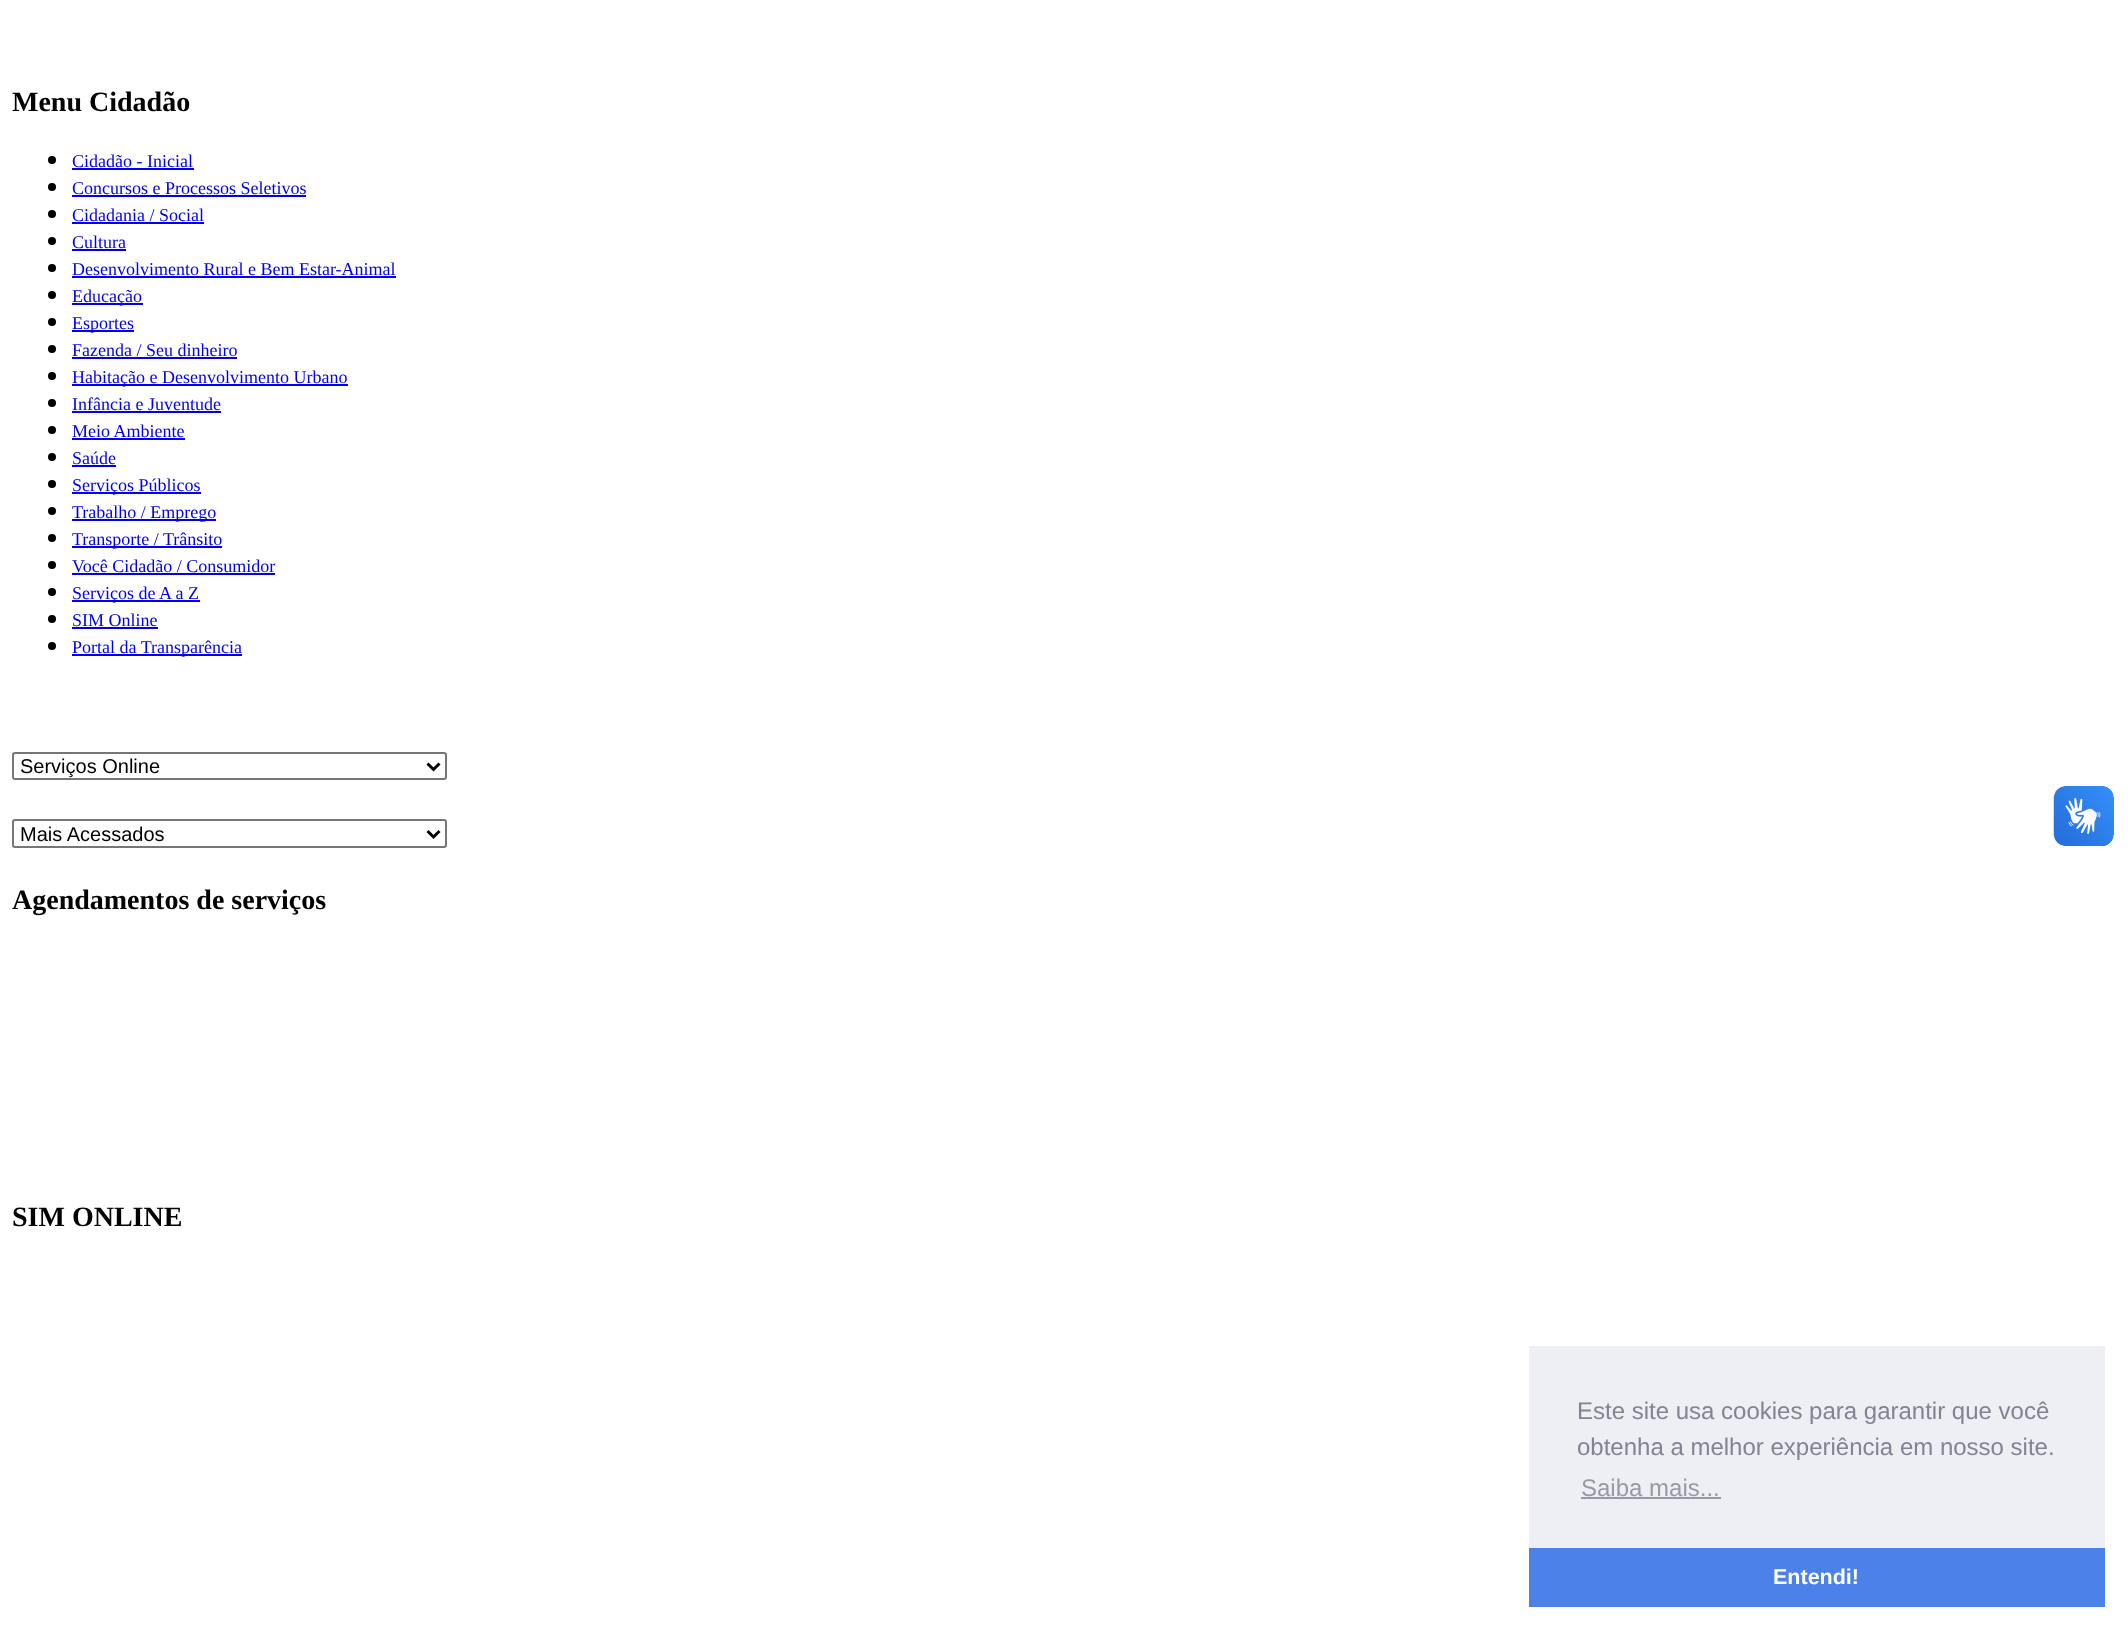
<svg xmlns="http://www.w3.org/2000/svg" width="2128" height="1630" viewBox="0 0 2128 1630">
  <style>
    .t1 { font: bold 28px Liberation Serif; fill: #000; }
    .t2 { font: 18px Liberation Serif; fill: #00e; }
    .t3 { font: 20px Liberation Sans; fill: #000; }
    .t4 { font: 24px Liberation Sans; fill: #838391; }
    .t5 { font: 24px Liberation Sans; fill: #9899a5; }
    .t6 { font: bold 21.5px Liberation Sans; fill: #fff; }
  </style>
  <rect width="100%" height="100%" fill="#fff"/>
  <text x="12" y="111" class="t1">Menu Cidadão</text>
  <circle cx="52" cy="160" r="4" fill="#000"/>
  <text x="72" y="167" class="t2">Cidadão - Inicial</text>
  <rect x="72" y="168" width="122" height="2" fill="#00e"/>
  <circle cx="52" cy="187" r="4" fill="#000"/>
  <text x="72" y="194" class="t2">Concursos e Processos Seletivos</text>
  <rect x="72" y="195" width="234" height="2" fill="#00e"/>
  <circle cx="52" cy="214" r="4" fill="#000"/>
  <text x="72" y="221" class="t2">Cidadania / Social</text>
  <rect x="72" y="222" width="132" height="2" fill="#00e"/>
  <circle cx="52" cy="241" r="4" fill="#000"/>
  <text x="72" y="248" class="t2">Cultura</text>
  <rect x="72" y="249" width="54" height="2" fill="#00e"/>
  <circle cx="52" cy="268" r="4" fill="#000"/>
  <text x="72" y="275" class="t2">Desenvolvimento Rural e Bem Estar-Animal</text>
  <rect x="72" y="276" width="324" height="2" fill="#00e"/>
  <circle cx="52" cy="295" r="4" fill="#000"/>
  <rect x="72" y="303" width="71" height="2" fill="#00e"/>
  <text x="72" y="302" class="t2">Educação</text>
  <circle cx="52" cy="322" r="4" fill="#000"/>
  <rect x="72" y="330" width="62" height="2" fill="#00e"/>
  <text x="72" y="329" class="t2">Esportes</text>
  <circle cx="52" cy="349" r="4" fill="#000"/>
  <text x="72" y="356" class="t2">Fazenda / Seu dinheiro</text>
  <rect x="72" y="357" width="165" height="2" fill="#00e"/>
  <circle cx="52" cy="376" r="4" fill="#000"/>
  <rect x="72" y="384" width="276" height="2" fill="#00e"/>
  <text x="72" y="383" class="t2">Habitação e Desenvolvimento Urbano</text>
  <circle cx="52" cy="403" r="4" fill="#000"/>
  <text x="72" y="410" class="t2">Infância e Juventude</text>
  <rect x="72" y="411" width="149" height="2" fill="#00e"/>
  <circle cx="52" cy="430" r="4" fill="#000"/>
  <text x="72" y="437" class="t2">Meio Ambiente</text>
  <rect x="72" y="438" width="113" height="2" fill="#00e"/>
  <circle cx="52" cy="457" r="4" fill="#000"/>
  <text x="72" y="464" class="t2">Saúde</text>
  <rect x="72" y="465" width="44" height="2" fill="#00e"/>
  <circle cx="52" cy="484" r="4" fill="#000"/>
  <rect x="72" y="492" width="129" height="2" fill="#00e"/>
  <text x="72" y="491" class="t2">Serviços Públicos</text>
  <circle cx="52" cy="511" r="4" fill="#000"/>
  <rect x="72" y="519" width="144" height="2" fill="#00e"/>
  <text x="72" y="518" class="t2">Trabalho / Emprego</text>
  <circle cx="52" cy="538" r="4" fill="#000"/>
  <rect x="72" y="546" width="150" height="2" fill="#00e"/>
  <text x="72" y="545" class="t2">Transporte / Trânsito</text>
  <circle cx="52" cy="565" r="4" fill="#000"/>
  <text x="72" y="572" class="t2">Você Cidadão / Consumidor</text>
  <rect x="72" y="573" width="203" height="2" fill="#00e"/>
  <circle cx="52" cy="592" r="4" fill="#000"/>
  <rect x="72" y="600" width="128" height="2" fill="#00e"/>
  <text x="72" y="599" class="t2">Serviços de A a Z</text>
  <circle cx="52" cy="619" r="4" fill="#000"/>
  <text x="72" y="626" class="t2">SIM Online</text>
  <rect x="72" y="627" width="86" height="2" fill="#00e"/>
  <circle cx="52" cy="646" r="4" fill="#000"/>
  <rect x="72" y="654" width="170" height="2" fill="#00e"/>
  <text x="72" y="653" class="t2">Portal da Transparência</text>
  <rect x="13" y="753" width="433" height="26" rx="2" fill="none" stroke="#767676" stroke-width="2"/>
  <path d="M427.5 763.5L433.5 769.5L439.5 763.5" fill="none" stroke="#000" stroke-width="3"/>
  <text x="20" y="773" class="t3">Serviços Online</text>
  <rect x="13" y="820" width="433" height="27" rx="2" fill="none" stroke="#767676" stroke-width="2"/>
  <path d="M427.5 831L433.5 837L439.5 831" fill="none" stroke="#000" stroke-width="3"/>
  <text x="20" y="841" class="t3">Mais Acessados</text>
  <text x="12" y="909" class="t1">Agendamentos de serviços</text>
  <text x="12" y="1226" class="t1">SIM ONLINE</text>
  <image x="2053" y="786" width="61" height="60" href="images/1.png"/>
  <image x="2054" y="786" width="60" height="60" href="images/2.png"/>
  <rect x="1529" y="1346" width="576" height="202" fill="#edeff5"/>
  <text x="1577" y="1419" class="t4">Este site usa cookies para garantir que você</text>
  <text x="1577" y="1455" class="t4">obtenha a melhor experiência em nosso site.</text>
  <text x="1581" y="1496" class="t5">Saiba mais...</text>
  <rect x="1581" y="1497" width="140" height="2" fill="#9899a5"/>
  <rect x="1529" y="1548" width="576" height="59" fill="#4b81e8"/>
  <text x="1773" y="1584" class="t6">Entendi!</text>
</svg>
